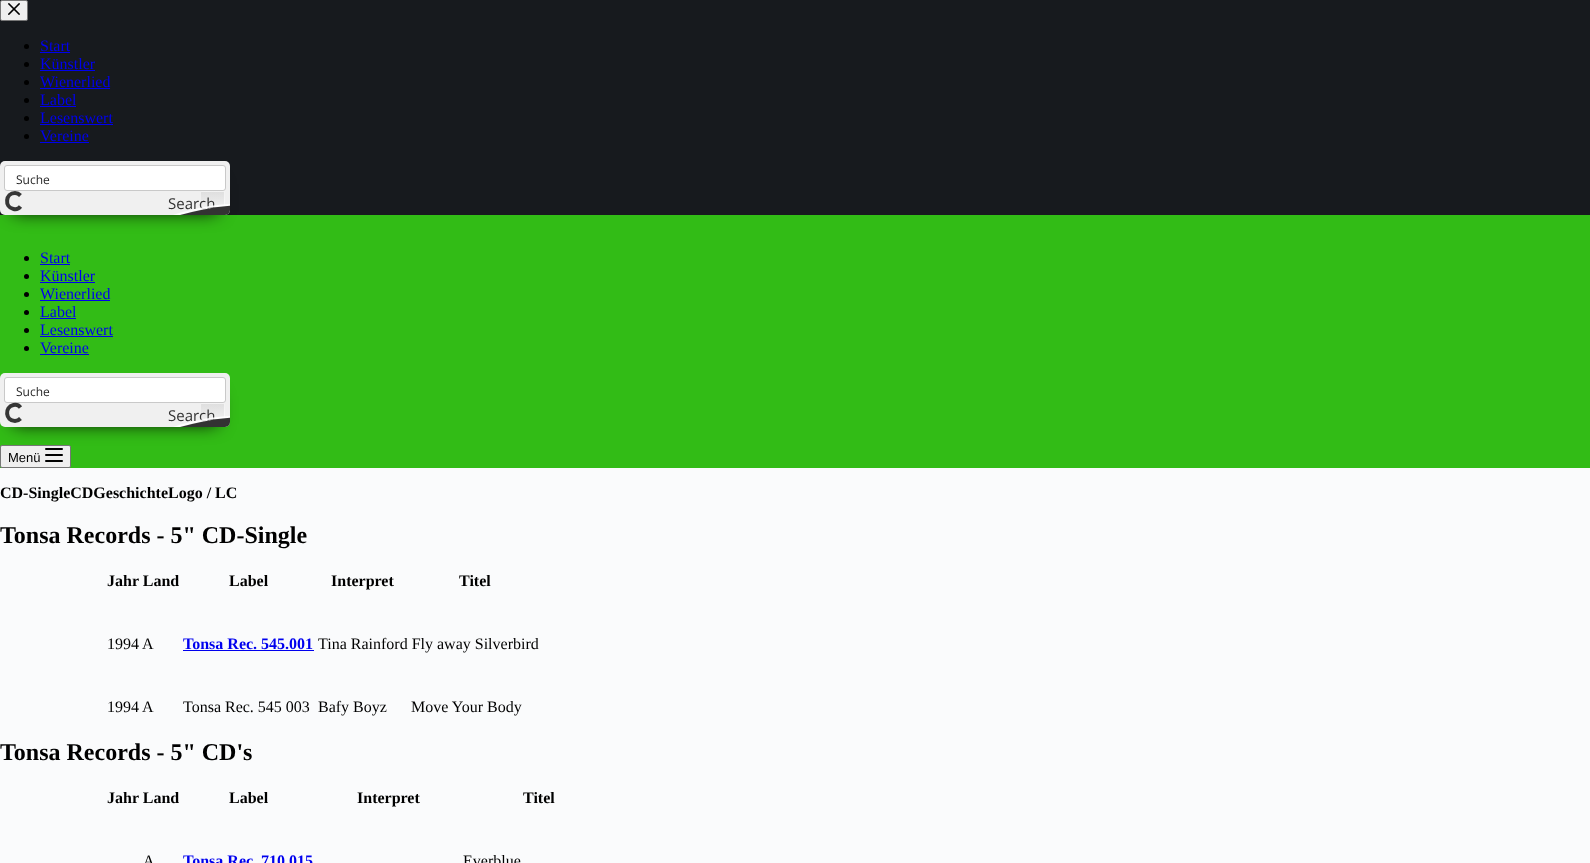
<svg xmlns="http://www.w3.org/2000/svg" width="1590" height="863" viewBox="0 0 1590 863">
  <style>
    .t1 { font: 16px Liberation Serif; fill: #00e; }
    .t2 { font: 12px Open Sans; fill: #262626; }
    .t3 { font: 15px Open Sans; fill: #333; }
    .t4 { font: 13px Liberation Sans; fill: #000; }
    .t5 { font: bold 16px Liberation Serif; fill: #000; }
    .t6 { font: bold 24px Liberation Serif; fill: #000; }
    .t7 { font: 16px Liberation Serif; fill: #000; }
    .t8 { font: bold 16px Liberation Serif; fill: #00e; }
  </style>
  <defs>
    <linearGradient id="g1" gradientUnits="userSpaceOnUse" x1="213" y1="191" x2="213" y2="215"><stop offset="0" stop-color="#dedede"/><stop offset="1" stop-color="#f7f7f7"/></linearGradient>
    <clipPath id="clip1"><rect x="201" y="191" width="24" height="24"/></clipPath>
    <clipPath id="clip2"><rect x="0" y="161" width="230" height="54" rx="5"/></clipPath>
    <linearGradient id="g2" gradientUnits="userSpaceOnUse" x1="213" y1="403" x2="213" y2="427"><stop offset="0" stop-color="#dedede"/><stop offset="1" stop-color="#f7f7f7"/></linearGradient>
    <clipPath id="clip3"><rect x="201" y="403" width="24" height="24"/></clipPath>
    <clipPath id="clip4"><rect x="0" y="373" width="230" height="54" rx="5"/></clipPath>
  </defs>
  <rect width="100%" height="100%" fill="#fafbfc"/>
  <rect x="0" y="0" width="1590" height="215" fill="#171a1e"/>
  <rect x="0.5" y="0.5" width="27" height="20" rx="1.5" fill="#efefef" stroke="#767676"/>
  <image x="8" y="3" width="12" height="12" href="images/1.png"/>
  <circle cx="26.5" cy="46.5" r="2.5" fill="#000"/>
  <text x="40" y="51" class="t1">Start</text>
  <rect x="40" y="52" width="30" height="1" fill="#00e"/>
  <circle cx="26.5" cy="64.5" r="2.5" fill="#000"/>
  <text x="40" y="69" class="t1">Künstler</text>
  <rect x="40" y="70" width="55" height="1" fill="#00e"/>
  <circle cx="26.5" cy="82.5" r="2.5" fill="#000"/>
  <text x="40" y="87" class="t1">Wienerlied</text>
  <rect x="40" y="88" width="70" height="1" fill="#00e"/>
  <circle cx="26.5" cy="100.5" r="2.5" fill="#000"/>
  <text x="40" y="105" class="t1">Label</text>
  <rect x="40" y="106" width="36" height="1" fill="#00e"/>
  <circle cx="26.5" cy="118.5" r="2.5" fill="#000"/>
  <text x="40" y="123" class="t1">Lesenswert</text>
  <rect x="40" y="124" width="73" height="1" fill="#00e"/>
  <circle cx="26.5" cy="136.5" r="2.5" fill="#000"/>
  <text x="40" y="141" class="t1">Vereine</text>
  <rect x="40" y="142" width="49" height="1" fill="#00e"/>
  <rect x="0" y="215" width="1590" height="253" fill="#32bc16"/>
  <rect x="13" y="184" width="204" height="28" fill="#000" filter="blur(9px)"/>
  <rect x="0" y="161" width="230" height="54" rx="5" fill="#f0f0f0"/>
  <rect x="4.5" y="165.5" width="221" height="25" rx="2.5" fill="#fff" stroke="#c9c9c9"/>
  <text x="16" y="184" class="t2">Suche</text>
  <path d="M20.5 206.5C19 208.5 16 209.5 13.5 209C4 207 5.5 193 15 193C17 193 19 194 20.5 195.5" fill="none" stroke="#363636" stroke-width="4"/>
  <rect x="201" y="191" width="24" height="15" fill="url(#g1)"/>
  <g clip-path="url(#clip1)">
    <path d="M200 192V215H102V161H225C228 161 230 163 230 166V210C230 213 228 215 225 215H224V192Z" fill="#ffffff9c"/>
  </g>
  <text x="168" y="209" class="t3">Search</text>
  <path d="M230 204C210 205 191 209 173 215H180C196 210 213 207 230 206Z" fill="#ffffffe6"/>
  <circle cx="26.5" cy="258.5" r="2.5" fill="#000"/>
  <text x="40" y="263" class="t1">Start</text>
  <rect x="40" y="264" width="30" height="1" fill="#00e"/>
  <circle cx="26.5" cy="276.5" r="2.5" fill="#000"/>
  <text x="40" y="281" class="t1">Künstler</text>
  <rect x="40" y="282" width="55" height="1" fill="#00e"/>
  <circle cx="26.5" cy="294.5" r="2.5" fill="#000"/>
  <text x="40" y="299" class="t1">Wienerlied</text>
  <rect x="40" y="300" width="70" height="1" fill="#00e"/>
  <circle cx="26.5" cy="312.5" r="2.5" fill="#000"/>
  <text x="40" y="317" class="t1">Label</text>
  <rect x="40" y="318" width="36" height="1" fill="#00e"/>
  <circle cx="26.5" cy="330.5" r="2.5" fill="#000"/>
  <text x="40" y="335" class="t1">Lesenswert</text>
  <rect x="40" y="336" width="73" height="1" fill="#00e"/>
  <circle cx="26.5" cy="348.5" r="2.5" fill="#000"/>
  <text x="40" y="353" class="t1">Vereine</text>
  <rect x="40" y="354" width="49" height="1" fill="#00e"/>
  <rect x="0.5" y="445.5" width="70" height="22" rx="1.5" fill="#efefef" stroke="#767676"/>
  <text x="8" y="462" class="t4">Menü</text>
  <text x="0" y="498" class="t5">CD-SingleCDGeschichteLogo / LC</text>
  <text x="0" y="543" class="t6">Tonsa Records - 5" CD-Single</text>
  <text x="107" y="586" class="t5">Jahr Land</text>
  <text x="229" y="586" class="t5">Label</text>
  <text x="331" y="586" class="t5">Interpret</text>
  <text x="459" y="586" class="t5">Titel</text>
  <text x="107" y="649" class="t7">1994 A</text>
  <text x="183" y="649" class="t8">Tonsa Rec. 545.001</text>
  <rect x="183" y="650" width="131" height="1" fill="#00e"/>
  <text x="318" y="649" class="t7">Tina Rainford Fly away Silverbird</text>
  <text x="107" y="712" class="t7">1994 A</text>
  <text x="183" y="712" class="t7">Tonsa Rec. 545 003</text>
  <text x="318" y="712" class="t7">Bafy Boyz</text>
  <text x="411" y="712" class="t7">Move Your Body</text>
  <g clip-path="url(#clip2)">
    <circle cx="251" cy="461" r="256" fill="#333"/>
  </g>
  <rect x="13" y="396" width="204" height="28" fill="#000" filter="blur(9px)"/>
  <rect x="0" y="373" width="230" height="54" rx="5" fill="#f0f0f0"/>
  <rect x="4.5" y="377.5" width="221" height="25" rx="2.5" fill="#fff" stroke="#c9c9c9"/>
  <text x="16" y="396" class="t2">Suche</text>
  <path d="M20.5 418.5C19 420 17 421 15 421C5.5 421 4 407 13.5 405C16 404.5 19 405.5 20.5 407.5" fill="none" stroke="#363636" stroke-width="4"/>
  <rect x="201" y="403" width="24" height="15" fill="url(#g2)"/>
  <g clip-path="url(#clip3)">
    <path d="M200 404V427H102V373H225C228 373 230 375 230 378V422C230 425 228 427 225 427H224V404Z" fill="#ffffff9c"/>
  </g>
  <text x="168" y="421" class="t3">Search</text>
  <path d="M230 416C210 417 191 421 173 427H180C196 422 213 419 230 418Z" fill="#ffffffe6"/>
  <text x="0" y="760" class="t6">Tonsa Records - 5" CD's</text>
  <text x="107" y="803" class="t5">Jahr Land</text>
  <text x="229" y="803" class="t5">Label</text>
  <text x="357" y="803" class="t5">Interpret</text>
  <text x="143" y="866" class="t7">A</text>
  <text x="183" y="866" class="t8">Tonsa Rec. 710 015</text>
  <text x="463" y="866" class="t7">Everblue</text>
  <g clip-path="url(#clip4)">
    <circle cx="251" cy="673" r="256" fill="#333"/>
  </g>
  <rect x="45" y="448" width="18" height="2" rx="1" fill="#000"/>
  <rect x="45" y="454" width="18" height="2" rx="1" fill="#000"/>
  <rect x="45" y="460" width="18" height="2" rx="1" fill="#000"/>
  <text x="523" y="803" class="t5">Titel</text>
</svg>
